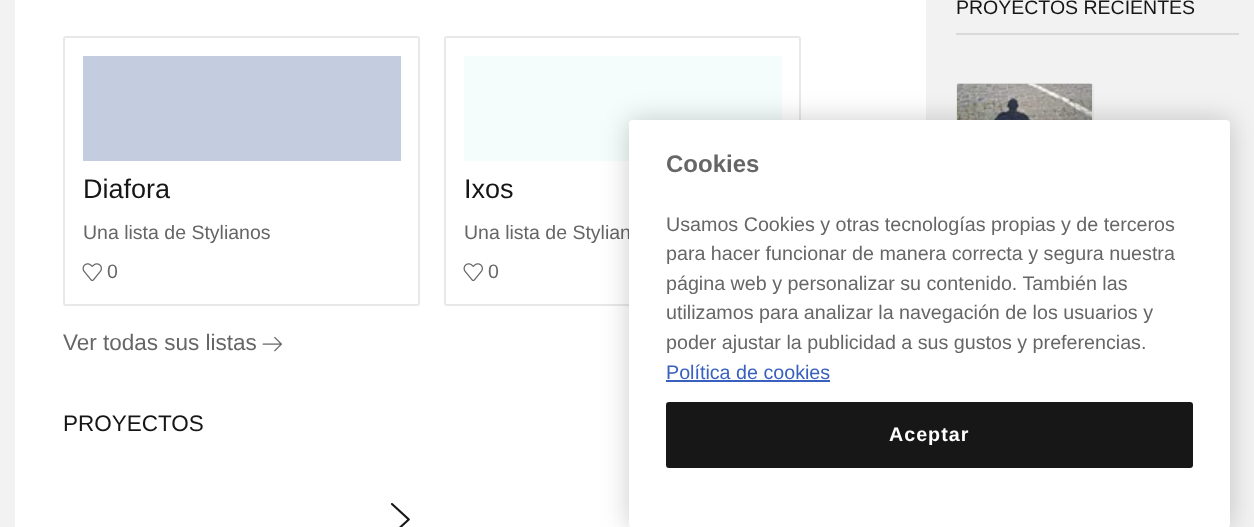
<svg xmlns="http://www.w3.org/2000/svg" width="1254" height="527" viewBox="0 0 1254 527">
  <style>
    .t1 { font: 19.5px Liberation Sans; fill: #161616; }
    .t2 { font: 27px Liberation Sans; fill: #161616; }
    .t3 { font: 19.5px Liberation Sans; fill: #666; }
    .t4 { font: 22.5px Liberation Sans; fill: #666; }
    .t5 { font: 22.5px Liberation Sans; fill: #161616; }
    .t6 { font: bold 24px Liberation Sans; fill: #666; }
    .t7 { font: 19.7px Liberation Sans; fill: #666; }
    .t8 { font: 19.7px Liberation Sans; fill: #3860be; }
    .t9 { font: bold 19.7px Liberation Sans; letter-spacing: 1px; fill: #fff; }
  </style>
  <rect width="100%" height="100%" fill="#f2f2f2"/>
  <rect x="956" y="33" width="283" height="2" fill="#d9d9d9"/>
  <text x="956" y="14" class="t1">PROYECTOS RECIENTES</text>
  <rect x="957" y="84" width="136" height="136" rx="2" fill="none" stroke="#e8e8e8" stroke-width="2"/>
  <image x="957" y="83" width="135" height="37" href="images/1.png"/>
  <rect x="15" y="0" width="911" height="527" fill="#fff"/>
  <rect x="64" y="37" width="355" height="268" rx="2" fill="none" stroke="#e8e8e8" stroke-width="2"/>
  <rect x="83" y="56" width="318" height="105" fill="#c4cde0"/>
  <text x="83" y="198" class="t2">Diafora</text>
  <text x="83" y="239" class="t3">Una lista de Stylianos</text>
  <image x="82" y="263" width="20" height="19" href="images/2.png"/>
  <text x="107" y="278" class="t3">0</text>
  <rect x="445" y="37" width="355" height="268" rx="2" fill="none" stroke="#e8e8e8" stroke-width="2"/>
  <rect x="464" y="56" width="318" height="105" fill="#f4fcfc"/>
  <text x="464" y="198" class="t2">Ixos</text>
  <text x="464" y="239" class="t3">Una lista de Stylian</text>
  <image x="463" y="263" width="20" height="19" href="images/2.png"/>
  <text x="488" y="278" class="t3">0</text>
  <text x="63" y="350" class="t4">Ver todas sus listas</text>
  <image x="262" y="336" width="20" height="16" href="images/3.png"/>
  <text x="63" y="431" class="t5">PROYECTOS</text>
  <image x="390" y="503" width="20" height="24" href="images/4.png"/>
  <rect x="629" y="120" width="601" height="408" rx="4" fill="#00000033" filter="blur(13.5px)"/>
  <rect x="629" y="120" width="601" height="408" rx="4" fill="#fff"/>
  <text x="666" y="172" class="t6">Cookies</text>
  <text x="666" y="231" class="t7">Usamos Cookies y otras tecnologías propias y de terceros</text>
  <text x="666" y="260" class="t7">para hacer funcionar de manera correcta y segura nuestra</text>
  <text x="666" y="290" class="t7">página web y personalizar su contenido. También las</text>
  <text x="666" y="319" class="t7">utilizamos para analizar la navegación de los usuarios y</text>
  <text x="666" y="349" class="t7">poder ajustar la publicidad a sus gustos y preferencias.</text>
  <text x="666" y="379" class="t8">Política de cookies</text>
  <rect x="666" y="380" width="164" height="2" fill="#3860be"/>
  <rect x="667" y="403" width="525" height="64" rx="2" fill="#171717" stroke="#171717" stroke-width="2"/>
  <text x="889" y="441" class="t9">Aceptar</text>
</svg>
